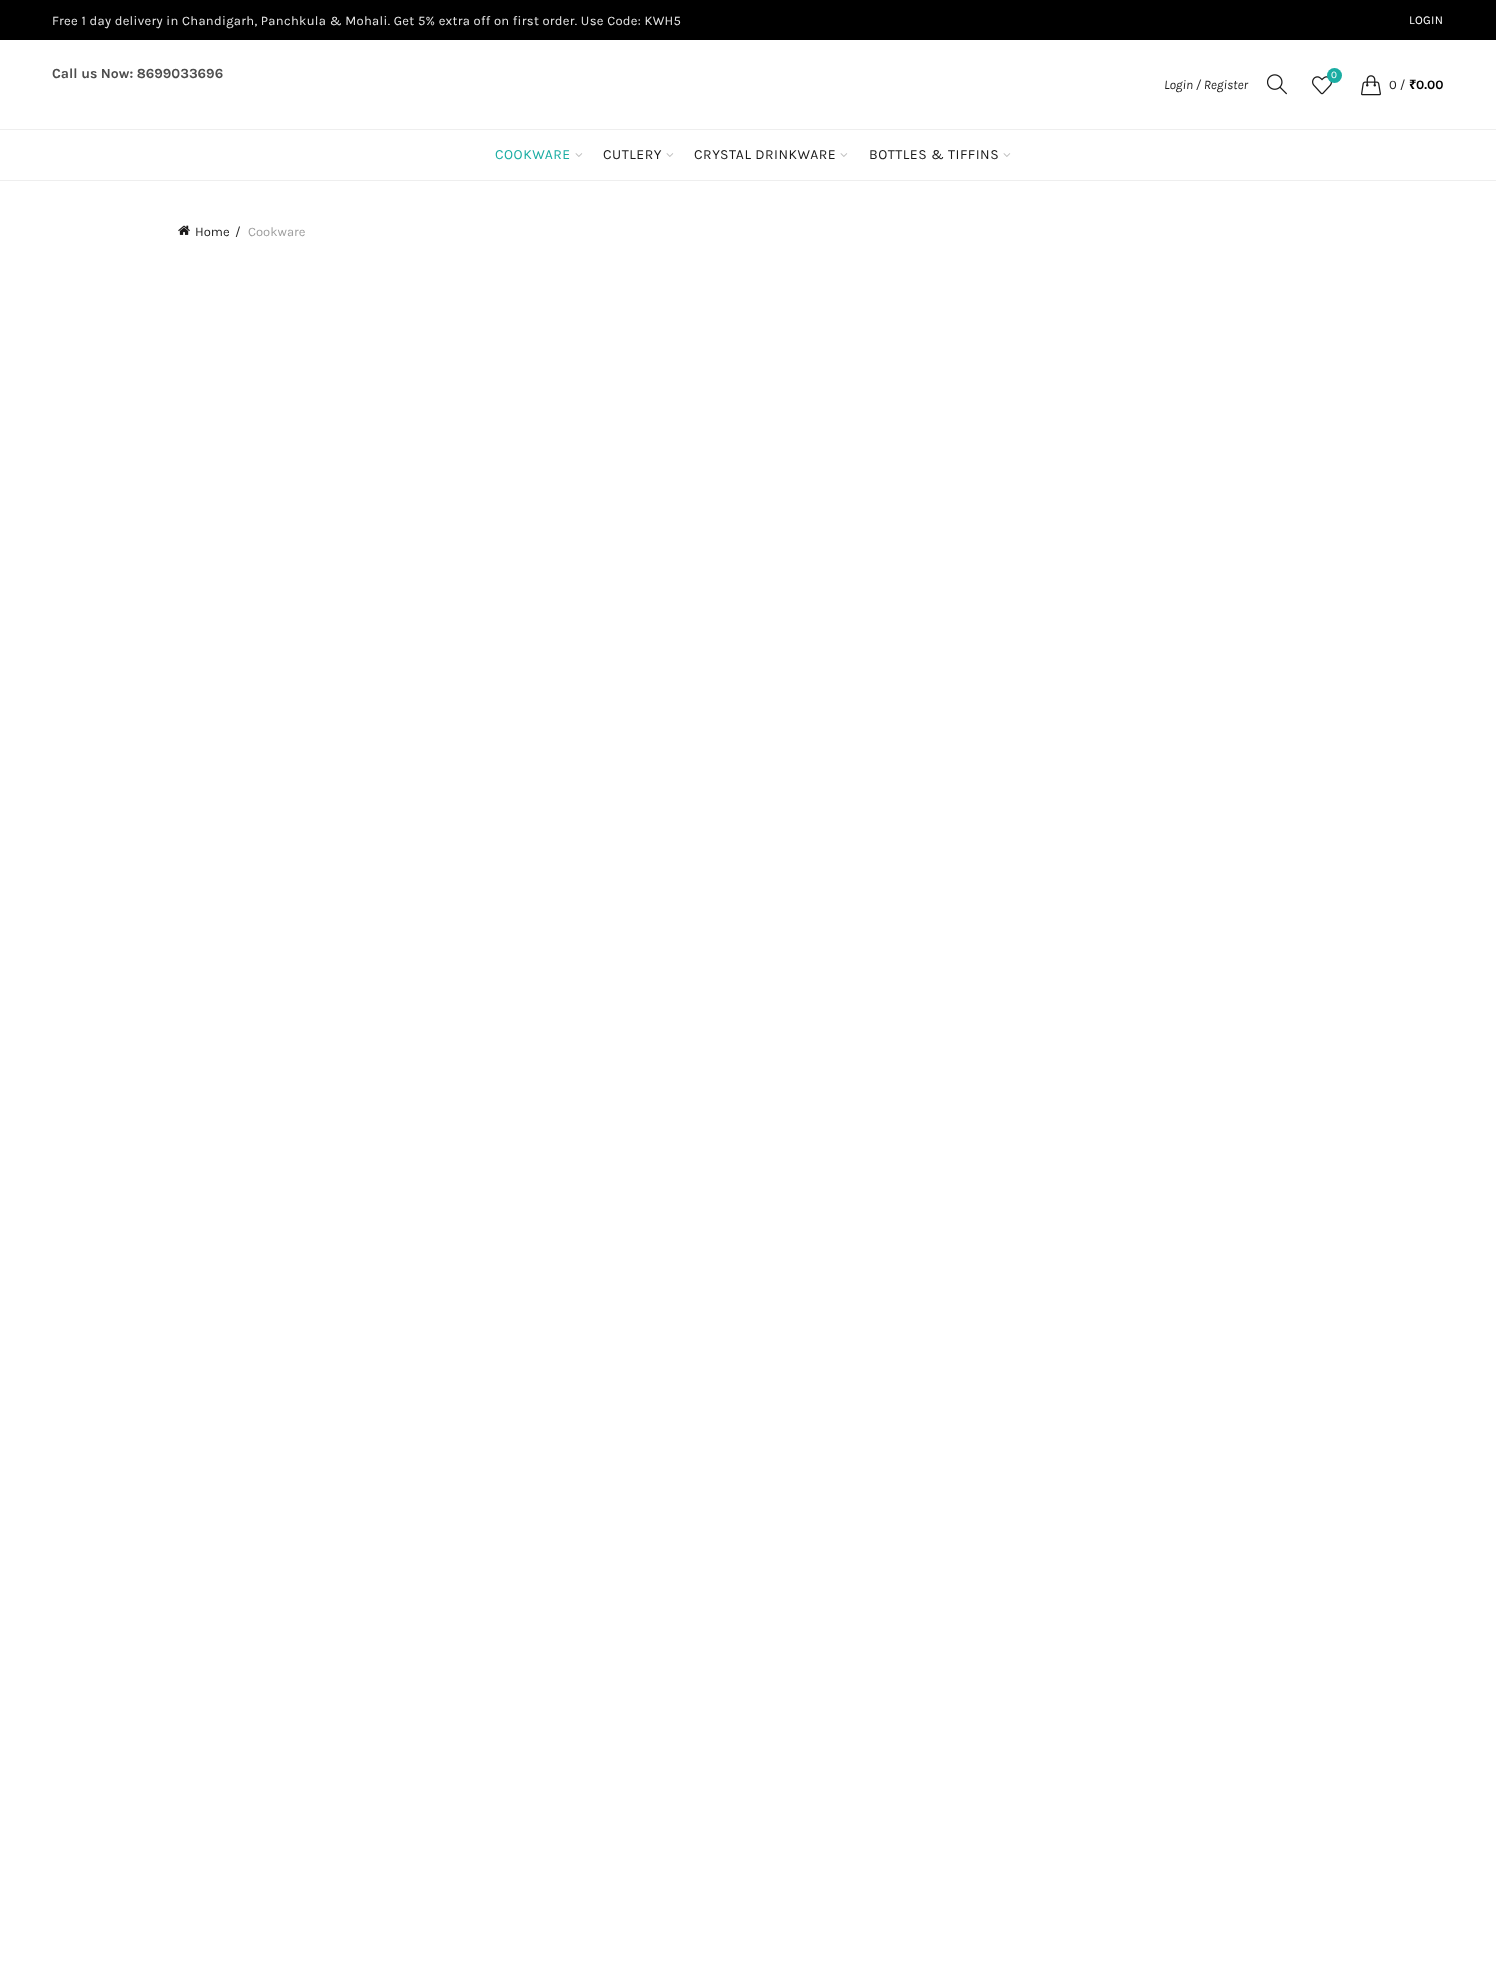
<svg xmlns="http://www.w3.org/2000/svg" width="1496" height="1988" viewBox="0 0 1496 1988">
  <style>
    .t1 { font: 13px Karla; letter-spacing: 0.3px; fill: #e6e6e6; }
    .t2 { font: 12px Karla; letter-spacing: 0.3px; fill: #fff; }
    .t3 { font: bold 14px Karla; fill: #4d4d4d; }
    .t4 { font: italic 13px Karla; fill: #1a1a1a; }
    .t5 { font: 10px Karla; fill: #fff; }
    .t6 { font: 13px Karla; fill: #1a1a1a; }
    .t7 { font: bold 13px Noto Sans; fill: #000; }
    .t8 { font: bold 13px Karla; fill: #000; }
    .t9 { font: 14px Karla; letter-spacing: 0.5px; fill: #1aada3; }
    .t10 { font: 14px Karla; letter-spacing: 0.5px; fill: #1a1a1a; }
    .t11 { font: 13px Karla; fill: #9e9e9e; }
  </style>
  <rect width="100%" height="100%" fill="#fff"/>
  <rect x="0" y="0" width="1496" height="40" fill="#000"/>
  <text x="52" y="25" class="t1">Free 1 day delivery in Chandigarh, Panchkula &amp; Mohali. Get 5% extra off on first order. Use Code: KWH5</text>
  <text x="1409" y="24" class="t2">LOGIN</text>
  <text x="52" y="78" class="t3">Call us Now: 8699033696</text>
  <text x="1164" y="89" class="t4">Login / Register</text>
  <image x="1267" y="74" width="20" height="21" href="images/1.png"/>
  <image x="1312" y="76" width="20" height="19" href="images/2.png"/>
  <circle cx="1334.5" cy="75.5" r="7.5" fill="#1aada3"/>
  <text x="1331" y="78" class="t5">0</text>
  <image x="1361" y="75" width="20" height="21" href="images/3.png"/>
  <text x="1389" y="89" class="t6">0 /</text>
  <text x="1409" y="89" class="t7">₹</text>
  <text x="1416" y="89" class="t8">0.00</text>
  <rect x="0" y="129" width="1496" height="1" fill="#eee"/>
  <rect x="0" y="180" width="1496" height="1" fill="#eee"/>
  <text x="495" y="159" class="t9">COOKWARE</text>
  <image x="575" y="153" width="8" height="4" href="images/4.png"/>
  <text x="603" y="159" class="t10">CUTLERY</text>
  <image x="666" y="153" width="8" height="4" href="images/4.png"/>
  <text x="694" y="159" class="t10">CRYSTAL DRINKWARE</text>
  <image x="840" y="153" width="8" height="4" href="images/4.png"/>
  <text x="869" y="159" class="t10">BOTTLES &amp; TIFFINS</text>
  <image x="1003" y="153" width="8" height="4" href="images/4.png"/>
  <image x="178" y="225" width="12" height="10" href="images/5.png"/>
  <text x="195" y="236" class="t6">Home</text>
  <text x="235" y="236" class="t6">/</text>
  <text x="248" y="236" class="t11">Cookware</text>
</svg>
